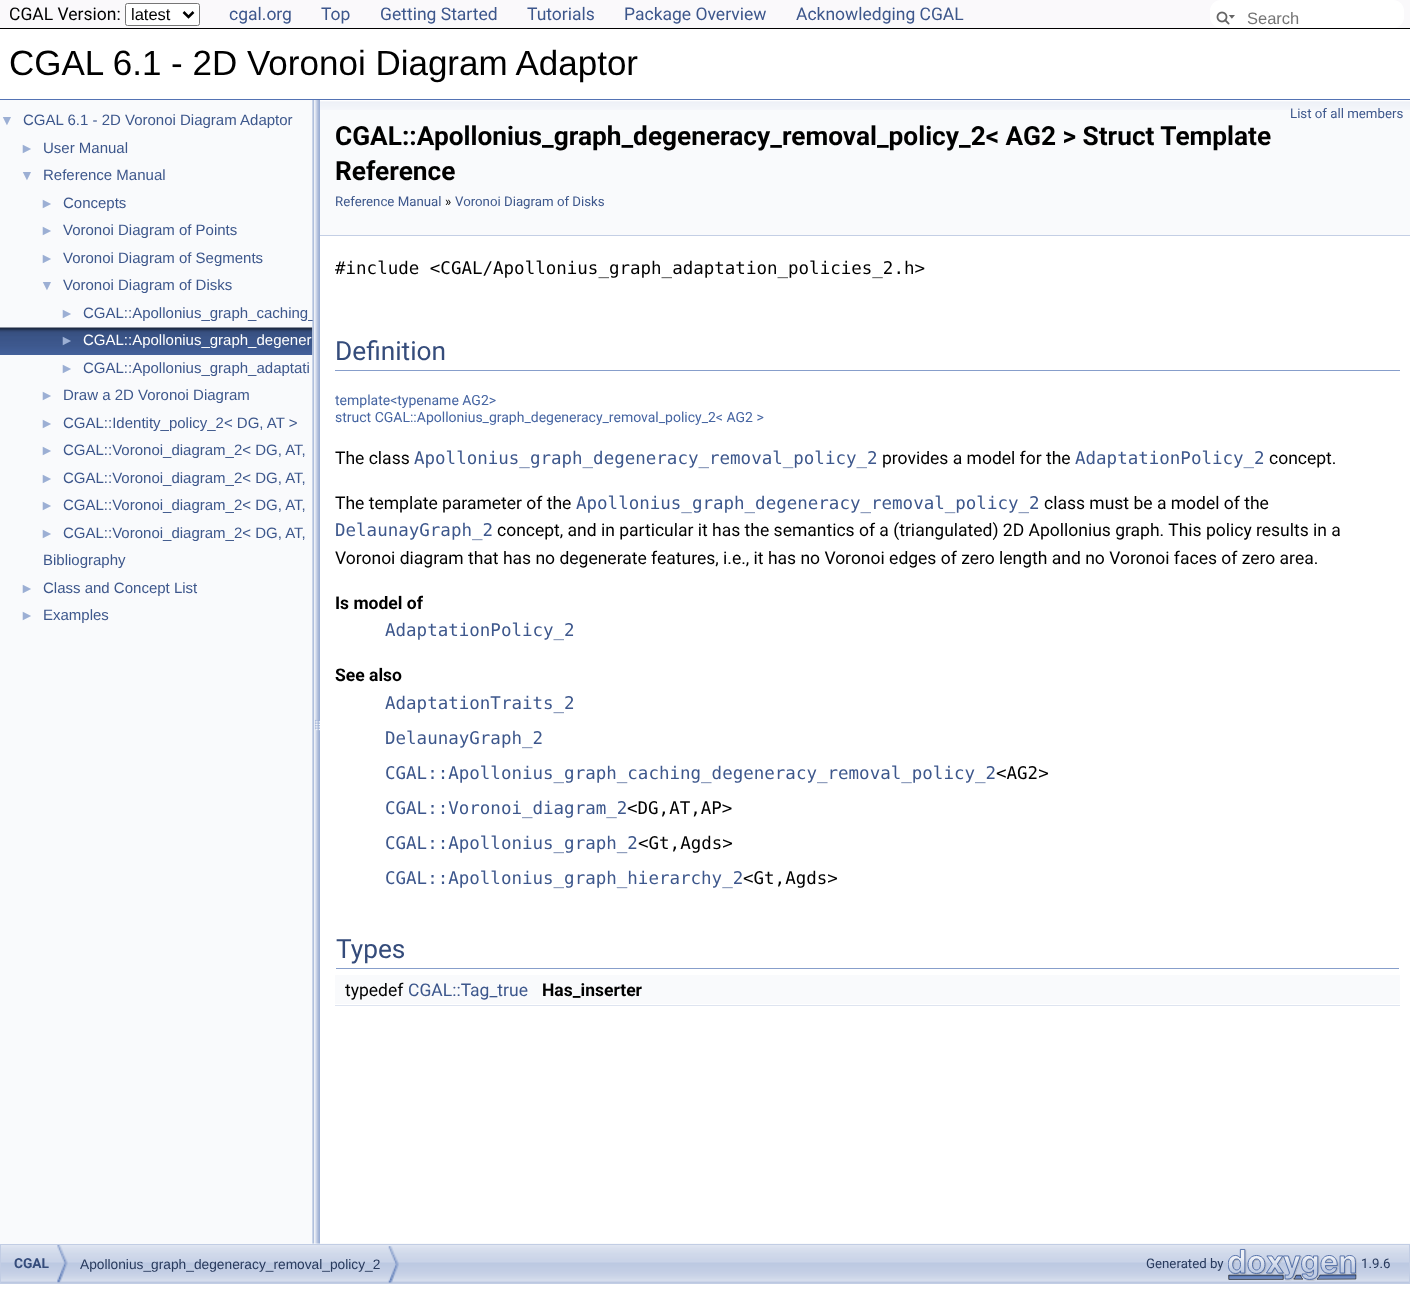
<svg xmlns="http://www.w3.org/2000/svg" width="1410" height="1301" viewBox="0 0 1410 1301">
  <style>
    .t1 { font: 17.5px Roboto; fill: #000; }
    .t2 { font: 16.5px Liberation Sans; fill: #000; }
    .t3 { font: 17.5px Roboto; fill: #3d578c; }
    .t4 { font: 16.5px Liberation Sans; fill: #757575; }
    .t5 { font: 35px Liberation Sans; fill: #000; }
    .t6 { font: 14px Liberation Sans; fill: #9cafd4; }
    .t7 { font: 15px Liberation Sans; fill: #3d578c; }
    .t8 { font: 15px Liberation Sans; fill: #fff; }
    .t9 { font: 13.25px Roboto; fill: #3d578c; }
    .t10 { font: bold 26.25px Roboto; fill: #000; }
    .t11 { font: 13.25px Roboto; fill: #000; }
    .t12 { font: 17.5px DejaVu Sans Mono; fill: #000; }
    .t13 { font: 26.25px Roboto; fill: #354c7b; }
    .t14 { font: 14px Roboto; fill: #4665a2; }
    .t15 { font: 17.5px DejaVu Sans Mono; fill: #3d578c; }
    .t16 { font: bold 17.5px Roboto; fill: #000; }
    .t17 { font: bold 13.75px Roboto; fill: #354c7b; }
    .t18 { font: 13.75px Liberation Sans; fill: #283a5d; }
    .t19 { font: 13.25px Roboto; fill: #283a5d; }
  </style>
  <rect width="100%" height="100%" fill="#fff"/>
  <rect x="0" y="0" width="1410" height="28" fill="#faf9fb"/>
  <rect x="0" y="28" width="1410" height="1" fill="#000"/>
  <text x="9" y="20" class="t1">CGAL Version:</text>
  <rect x="125.5" y="3.5" width="74" height="22" rx="2" fill="#fff" stroke="#767676"/>
  <path d="M183.5 12L188.5 17L193.5 12" fill="none" stroke="#000" stroke-width="2.5"/>
  <text x="131" y="20" class="t2">latest</text>
  <text x="229" y="20" class="t3">cgal.org</text>
  <text x="321" y="20" class="t3">Top</text>
  <text x="380" y="20" class="t3">Getting Started</text>
  <text x="527" y="20" class="t3">Tutorials</text>
  <text x="624" y="20" class="t3">Package Overview</text>
  <text x="796" y="20" class="t3">Acknowledging CGAL</text>
  <rect x="1210" y="0" width="194" height="28" rx="11" fill="#fff"/>
  <image x="1216" y="11" width="19" height="14" href="images/1.png"/>
  <text x="1247" y="24" class="t4">Search</text>
  <rect x="0" y="99" width="1410" height="1" fill="#5373b4"/>
  <text x="9" y="75" class="t5">CGAL 6.1 - 2D Voronoi Diagram Adaptor</text>
  <image x="1" y="1243" width="1409" height="40" href="images/5.png"/>
  <rect x="0" y="100" width="313" height="1144" fill="#f9fafc"/>
  <text x="0" y="125" class="t6">▼</text>
  <text x="23" y="125" class="t7">CGAL 6.1 - 2D Voronoi Diagram Adaptor</text>
  <text x="20" y="153" class="t6">►</text>
  <text x="43" y="153" class="t7">User Manual</text>
  <text x="20" y="180" class="t6">▼</text>
  <text x="43" y="180" class="t7">Reference Manual</text>
  <text x="40" y="208" class="t6">►</text>
  <text x="63" y="208" class="t7">Concepts</text>
  <text x="40" y="235" class="t6">►</text>
  <text x="63" y="235" class="t7">Voronoi Diagram of Points</text>
  <text x="40" y="263" class="t6">►</text>
  <text x="63" y="263" class="t7">Voronoi Diagram of Segments</text>
  <text x="40" y="290" class="t6">▼</text>
  <text x="63" y="290" class="t7">Voronoi Diagram of Disks</text>
  <text x="60" y="318" class="t6">►</text>
  <text x="83" y="318" class="t7">CGAL::Apollonius_graph_caching_</text>
  <image x="0" y="327" width="313" height="28" href="images/2.png"/>
  <text x="60" y="345" class="t6">►</text>
  <text x="83" y="345" class="t8">CGAL::Apollonius_graph_degener</text>
  <text x="60" y="373" class="t6">►</text>
  <text x="83" y="373" class="t7">CGAL::Apollonius_graph_adaptati</text>
  <text x="40" y="400" class="t6">►</text>
  <text x="63" y="400" class="t7">Draw a 2D Voronoi Diagram</text>
  <text x="40" y="428" class="t6">►</text>
  <text x="63" y="428" class="t7">CGAL::Identity_policy_2&lt; DG, AT &gt;</text>
  <text x="40" y="455" class="t6">►</text>
  <text x="63" y="455" class="t7">CGAL::Voronoi_diagram_2&lt; DG, AT,</text>
  <text x="40" y="483" class="t6">►</text>
  <text x="63" y="483" class="t7">CGAL::Voronoi_diagram_2&lt; DG, AT,</text>
  <text x="40" y="510" class="t6">►</text>
  <text x="63" y="510" class="t7">CGAL::Voronoi_diagram_2&lt; DG, AT,</text>
  <text x="40" y="538" class="t6">►</text>
  <text x="63" y="538" class="t7">CGAL::Voronoi_diagram_2&lt; DG, AT,</text>
  <text x="43" y="565" class="t7">Bibliography</text>
  <text x="20" y="593" class="t6">►</text>
  <text x="43" y="593" class="t7">Class and Concept List</text>
  <text x="20" y="620" class="t6">►</text>
  <text x="43" y="620" class="t7">Examples</text>
  <image x="312" y="100" width="8" height="1144" href="images/3.png"/>
  <rect x="320" y="110" width="1090" height="125" fill="#f9fafc"/>
  <image x="320" y="100" width="1090" height="10" href="images/4.png"/>
  <rect x="320" y="235" width="1090" height="1" fill="#c4cfe5"/>
  <text x="1290" y="118" class="t9">List of all members</text>
  <text x="335" y="145" class="t10">CGAL::Apollonius_graph_degeneracy_removal_policy_2&lt; AG2 &gt; Struct Template</text>
  <text x="335" y="180" class="t10">Reference</text>
  <text x="335" y="206" class="t9">Reference Manual</text>
  <text x="445" y="206" class="t11">»</text>
  <text x="455" y="206" class="t9">Voronoi Diagram of Disks</text>
  <text x="335" y="274" class="t12">#include &lt;CGAL/Apollonius_graph_adaptation_policies_2.h&gt;</text>
  <rect x="335" y="370" width="1065" height="1" fill="#879ecb"/>
  <text x="335" y="360" class="t13">Definition</text>
  <text x="335" y="405" class="t14">template&lt;typename AG2&gt;</text>
  <text x="335" y="422" class="t14">struct CGAL::Apollonius_graph_degeneracy_removal_policy_2&lt; AG2 &gt;</text>
  <text x="335" y="464" class="t1">The class</text>
  <text x="414" y="464" class="t15">Apollonius_graph_degeneracy_removal_policy_2</text>
  <text x="882" y="464" class="t1">provides a model for the</text>
  <text x="1075" y="464" class="t15">AdaptationPolicy_2</text>
  <text x="1269" y="464" class="t1">concept.</text>
  <text x="335" y="509" class="t1">The template parameter of the</text>
  <text x="576" y="509" class="t15">Apollonius_graph_degeneracy_removal_policy_2</text>
  <text x="1044" y="509" class="t1">class must be a model of the</text>
  <text x="335" y="536" class="t15">DelaunayGraph_2</text>
  <text x="497" y="536" class="t1">concept, and in particular it has the semantics of a (triangulated) 2D Apollonius graph. This policy results in a</text>
  <text x="335" y="564" class="t1">Voronoi diagram that has no degenerate features, i.e., it has no Voronoi edges of zero length and no Voronoi faces of zero area.</text>
  <text x="335" y="609" class="t16">Is model of</text>
  <text x="385" y="636" class="t15">AdaptationPolicy_2</text>
  <text x="335" y="681" class="t16">See also</text>
  <text x="385" y="709" class="t15">AdaptationTraits_2</text>
  <text x="385" y="744" class="t15">DelaunayGraph_2</text>
  <text x="385" y="779" class="t15">CGAL::Apollonius_graph_caching_degeneracy_removal_policy_2</text>
  <text x="996" y="779" class="t12">&lt;AG2&gt;</text>
  <text x="385" y="814" class="t15">CGAL::Voronoi_diagram_2</text>
  <text x="627" y="814" class="t12">&lt;DG,AT,AP&gt;</text>
  <text x="385" y="849" class="t15">CGAL::Apollonius_graph_2</text>
  <text x="638" y="849" class="t12">&lt;Gt,Agds&gt;</text>
  <text x="385" y="884" class="t15">CGAL::Apollonius_graph_hierarchy_2</text>
  <text x="743" y="884" class="t12">&lt;Gt,Agds&gt;</text>
  <rect x="336" y="968" width="1063" height="1" fill="#879ecb"/>
  <text x="336" y="958" class="t13">Types</text>
  <rect x="335" y="975" width="1065" height="29" fill="#f9fafc"/>
  <text x="345" y="996" class="t1">typedef</text>
  <text x="408" y="996" class="t3">CGAL::Tag_true</text>
  <text x="542" y="996" class="t16">Has_inserter</text>
  <rect x="335" y="1005" width="1065" height="1" fill="#dee4f0"/>
  <rect x="0.5" y="1244.5" width="1409" height="39" fill="none" stroke="#c2cde4"/>
  <image x="57" y="1245" width="11" height="38" href="images/6.png"/>
  <text x="14" y="1268" class="t17">CGAL</text>
  <image x="388" y="1246" width="11" height="37" href="images/7.png"/>
  <text x="80" y="1269" class="t18">Apollonius_graph_degeneracy_removal_policy_2</text>
  <text x="1146" y="1268" class="t19">Generated by</text>
  <image x="1228" y="1248" width="129" height="33" href="images/8.png"/>
  <text x="1361" y="1268" class="t19">1.9.6</text>
</svg>
